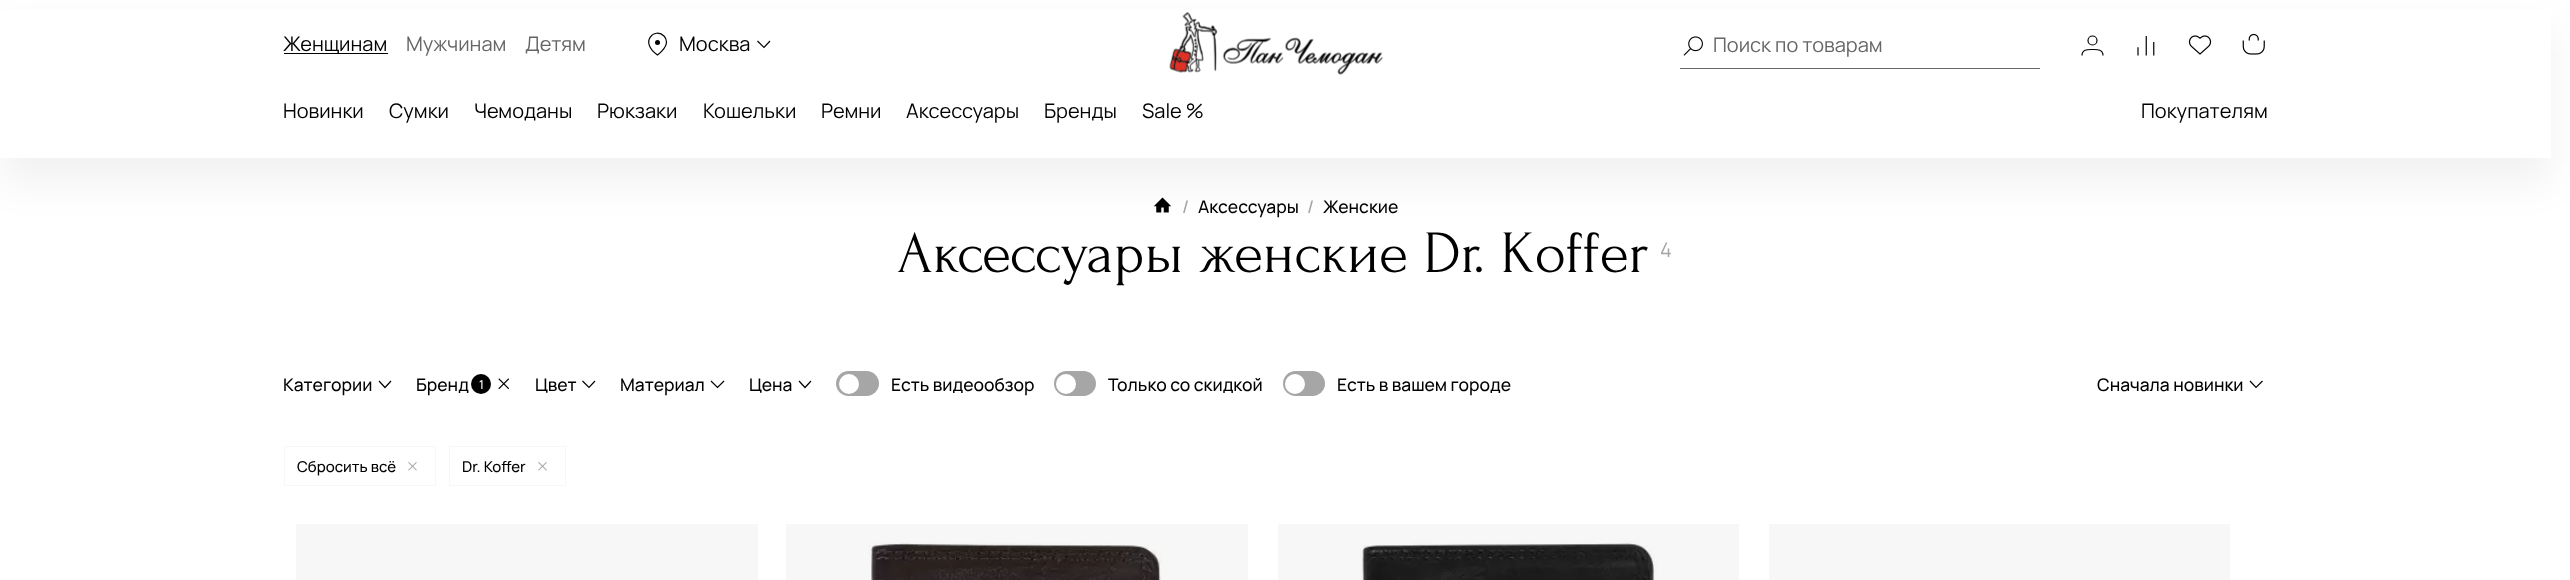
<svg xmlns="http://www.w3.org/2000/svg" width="2570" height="580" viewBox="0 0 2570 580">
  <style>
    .t1 { font: 20px Manrope; fill: #000; }
    .t2 { font: 20px Manrope; fill: #666; }
    .t3 { font: 500 17.5px Manrope; fill: #a6a6a6; }
    .t4 { font: 500 17.5px Manrope; fill: #000; }
    .t5 { font: 60px Forum; fill: #000; }
    .t6 { font: 20px Manrope; fill: #a6a6a6; }
    .t7 { font: 500 12px Manrope; fill: #fff; }
    .t8 { font: 500 15px Manrope; fill: #000; }
  </style>
  <rect width="100%" height="100%" fill="#fff"/>
  <rect x="1278" y="524" width="461" height="56" fill="#f7f7f7"/>
  <rect x="786" y="524" width="462" height="56" fill="#f7f7f7"/>
  <image x="1153" y="197" width="19" height="16" href="images/6.png"/>
  <rect x="0" y="26" width="2551" height="158" fill="#0000000d" filter="blur(19px)"/>
  <rect x="0" y="10" width="2551" height="148" fill="#fff"/>
  <text x="283" y="51" class="t1">Женщинам</text>
  <rect x="284" y="53" width="104" height="1" fill="#000"/>
  <text x="406" y="51" class="t2">Мужчинам</text>
  <text x="525" y="51" class="t2">Детям</text>
  <path d="M666.5 42C666.5 48.5 657.5 55 657.5 55C638.5 41.5 655 27 664 36C665.5 37.5 666.5 40 666.5 42Z" fill="none" stroke="#000" stroke-width="1.2"/>
  <circle cx="657.5" cy="42.5" r="2.5" fill="#000"/>
  <text x="679" y="51" class="t1">Москва</text>
  <path d="M757.5 41L764 47.5L770 41" fill="none" stroke="#000" stroke-width="1.2"/>
  <image x="1169" y="12" width="214" height="63" href="images/1.png"/>
  <rect x="1680" y="68" width="360" height="1" fill="#666"/>
  <image x="1683" y="36" width="20" height="20" href="images/2.png"/>
  <text x="1713" y="52" class="t2">Поиск по товарам</text>
  <circle cx="2092.5" cy="40.5" r="4.5" fill="none" stroke="#000" stroke-width="1.2"/>
  <path d="M2103 55.5C2103 49 2097 49.5 2092.5 49.5C2088 49.5 2082 49 2082 55.5" fill="none" stroke="#000" stroke-width="1.2"/>
  <image x="2137" y="36" width="18" height="20" href="images/3.png"/>
  <image x="2188" y="35" width="24" height="20" href="images/4.png"/>
  <image x="2242" y="33" width="23" height="22" href="images/5.png"/>
  <text x="283" y="118" class="t1">Новинки</text>
  <text x="389" y="118" class="t1">Сумки</text>
  <text x="474" y="118" class="t1">Чемоданы</text>
  <text x="597" y="118" class="t1">Рюкзаки</text>
  <text x="703" y="118" class="t1">Кошельки</text>
  <text x="821" y="118" class="t1">Ремни</text>
  <text x="906" y="118" class="t1">Аксессуары</text>
  <text x="1044" y="118" class="t1">Бренды</text>
  <text x="1142" y="118" class="t1">Sale %</text>
  <text x="2141" y="118" class="t1">Покупателям</text>
  <text x="1182" y="213" class="t3">/</text>
  <text x="1198" y="213" class="t4">Аксессуары</text>
  <text x="1307" y="213" class="t3">/</text>
  <text x="1323" y="213" class="t4">Женские</text>
  <text x="897" y="272" class="t5">Аксессуары женские Dr. Koffer</text>
  <text x="1660" y="257" class="t6">4</text>
  <text x="283" y="391" class="t4">Категории</text>
  <path d="M379 381L385 387.5L391 381" fill="none" stroke="#000" stroke-width="1.2"/>
  <text x="416" y="391" class="t4">Бренд</text>
  <circle cx="481" cy="384" r="10" fill="#000"/>
  <text x="479" y="389" class="t7">1</text>
  <image x="498" y="378" width="12" height="12" href="images/7.png"/>
  <text x="535" y="391" class="t4">Цвет</text>
  <path d="M582.5 381L589 387.5L595 381" fill="none" stroke="#000" stroke-width="1.2"/>
  <text x="620" y="391" class="t4">Материал</text>
  <path d="M711 381L717.5 387.5L724 381" fill="none" stroke="#000" stroke-width="1.2"/>
  <text x="749" y="391" class="t4">Цена</text>
  <path d="M799 381L805 387.5L811 381" fill="none" stroke="#000" stroke-width="1.2"/>
  <rect x="836" y="371" width="43" height="25" rx="12.5" fill="#a6a6a6"/>
  <circle cx="849" cy="384" r="10" fill="#fff"/>
  <text x="891" y="391" class="t4">Есть видеообзор</text>
  <rect x="1054" y="371" width="42" height="25" rx="12.5" fill="#a6a6a6"/>
  <circle cx="1066" cy="384" r="10" fill="#fff"/>
  <text x="1108" y="391" class="t4">Только со скидкой</text>
  <rect x="1283" y="371" width="42" height="25" rx="12.5" fill="#a6a6a6"/>
  <circle cx="1295" cy="384" r="10" fill="#fff"/>
  <text x="1337" y="391" class="t4">Есть в вашем городе</text>
  <text x="2097" y="391" class="t4">Сначала новинки</text>
  <path d="M2250 381L2256 387.5L2262.5 381" fill="none" stroke="#000" stroke-width="1.2"/>
  <rect x="284.5" y="446.5" width="151" height="39" fill="none" stroke="#f7f7f7"/>
  <text x="297" y="472" class="t8">Сбросить всё</text>
  <image x="408" y="462" width="9" height="9" href="images/8.png"/>
  <rect x="449.5" y="446.5" width="116" height="39" fill="none" stroke="#f7f7f7"/>
  <text x="462" y="472" class="t8">Dr. Koffer</text>
  <image x="538" y="462" width="9" height="9" href="images/8.png"/>
  <rect x="296" y="524" width="462" height="56" fill="#f7f7f7"/>
  <image x="868" y="542" width="294" height="38" href="images/9.png"/>
  <image x="1360" y="541" width="297" height="39" href="images/10.png"/>
  <rect x="1769" y="524" width="461" height="56" fill="#f7f7f7"/>
</svg>
